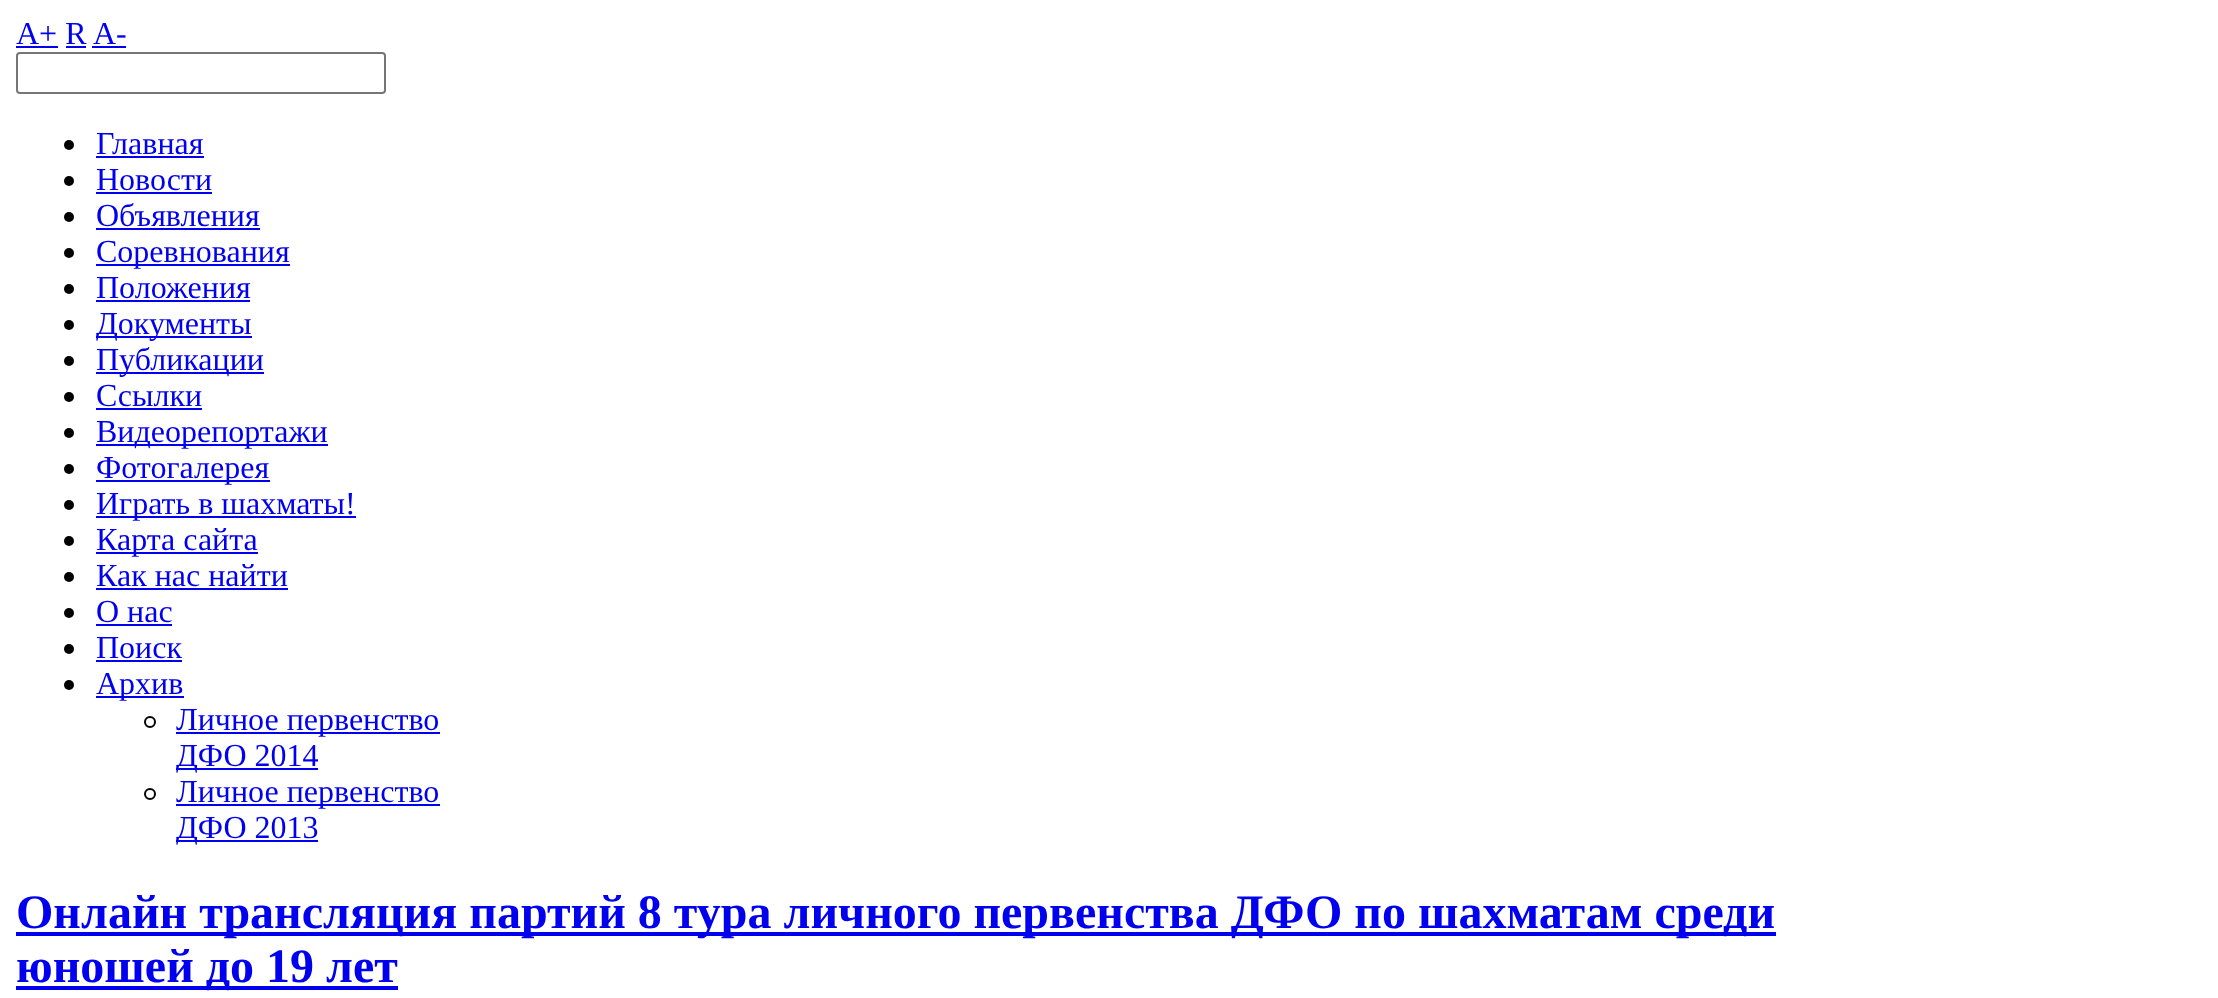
<svg xmlns="http://www.w3.org/2000/svg" width="2218" height="998" viewBox="0 0 2218 998">
  <style>
    .t1 { font: 32px Liberation Serif; fill: #00e; }
    .t2 { font: bold 48px Liberation Serif; fill: #00e; }
  </style>
  <rect width="100%" height="100%" fill="#fff"/>
  <text x="16" y="44" class="t1">A+ R</text>
  <rect x="16" y="46" width="42" height="2" fill="#00e"/>
  <text x="93" y="44" class="t1">A-</text>
  <rect x="92" y="46" width="34" height="2" fill="#00e"/>
  <rect x="66" y="46" width="20" height="2" fill="#00e"/>
  <rect x="17" y="53" width="368" height="40" rx="3" fill="none" stroke="#767676" stroke-width="2"/>
  <circle cx="69" cy="145" r="5" fill="#000"/>
  <text x="96" y="154" class="t1">Главная</text>
  <rect x="96" y="156" width="108" height="2" fill="#00e"/>
  <circle cx="69" cy="181" r="5" fill="#000"/>
  <text x="96" y="190" class="t1">Новости</text>
  <rect x="96" y="192" width="116" height="2" fill="#00e"/>
  <circle cx="69" cy="217" r="5" fill="#000"/>
  <text x="96" y="226" class="t1">Объявления</text>
  <rect x="96" y="228" width="164" height="2" fill="#00e"/>
  <circle cx="69" cy="253" r="5" fill="#000"/>
  <rect x="96" y="264" width="194" height="2" fill="#00e"/>
  <text x="96" y="262" class="t1">Соревнования</text>
  <circle cx="69" cy="289" r="5" fill="#000"/>
  <text x="96" y="298" class="t1">Положения</text>
  <rect x="96" y="300" width="154" height="2" fill="#00e"/>
  <circle cx="69" cy="325" r="5" fill="#000"/>
  <rect x="96" y="336" width="156" height="2" fill="#00e"/>
  <text x="96" y="334" class="t1">Документы</text>
  <circle cx="69" cy="361" r="5" fill="#000"/>
  <rect x="96" y="372" width="168" height="2" fill="#00e"/>
  <text x="96" y="370" class="t1">Публикации</text>
  <circle cx="69" cy="397" r="5" fill="#000"/>
  <text x="96" y="406" class="t1">Ссылки</text>
  <rect x="96" y="408" width="106" height="2" fill="#00e"/>
  <circle cx="69" cy="433" r="5" fill="#000"/>
  <rect x="96" y="444" width="232" height="2" fill="#00e"/>
  <text x="96" y="442" class="t1">Видеорепортажи</text>
  <circle cx="69" cy="469" r="5" fill="#000"/>
  <rect x="96" y="480" width="174" height="2" fill="#00e"/>
  <text x="96" y="478" class="t1">Фотогалерея</text>
  <circle cx="69" cy="505" r="5" fill="#000"/>
  <rect x="96" y="516" width="260" height="2" fill="#00e"/>
  <text x="96" y="514" class="t1">Играть в шахматы!</text>
  <circle cx="69" cy="541" r="5" fill="#000"/>
  <rect x="96" y="552" width="162" height="2" fill="#00e"/>
  <text x="96" y="550" class="t1">Карта сайта</text>
  <circle cx="69" cy="577" r="5" fill="#000"/>
  <text x="96" y="586" class="t1">Как нас найти</text>
  <rect x="96" y="588" width="192" height="2" fill="#00e"/>
  <circle cx="69" cy="613" r="5" fill="#000"/>
  <text x="96" y="622" class="t1">О нас</text>
  <rect x="96" y="624" width="76" height="2" fill="#00e"/>
  <circle cx="69" cy="649" r="5" fill="#000"/>
  <text x="96" y="658" class="t1">Поиск</text>
  <rect x="96" y="660" width="86" height="2" fill="#00e"/>
  <circle cx="69" cy="685" r="5" fill="#000"/>
  <rect x="96" y="696" width="88" height="2" fill="#00e"/>
  <text x="96" y="694" class="t1">Архив</text>
  <circle cx="150" cy="722" r="5" fill="none" stroke="#000" stroke-width="2"/>
  <rect x="176" y="732" width="264" height="2" fill="#00e"/>
  <text x="176" y="730" class="t1">Личное первенство</text>
  <rect x="176" y="768" width="142" height="2" fill="#00e"/>
  <text x="176" y="766" class="t1">ДФО 2014</text>
  <circle cx="150" cy="794" r="5" fill="none" stroke="#000" stroke-width="2"/>
  <rect x="176" y="804" width="264" height="2" fill="#00e"/>
  <text x="176" y="802" class="t1">Личное первенство</text>
  <rect x="176" y="840" width="142" height="2" fill="#00e"/>
  <text x="176" y="838" class="t1">ДФО 2013</text>
  <rect x="16" y="932" width="1760" height="4" fill="#00e"/>
  <text x="16" y="928" class="t2">Онлайн трансляция партий 8 тура личного первенства ДФО по шахматам среди</text>
  <rect x="16" y="986" width="382" height="4" fill="#00e"/>
  <text x="16" y="982" class="t2">юношей до 19 лет</text>
</svg>
